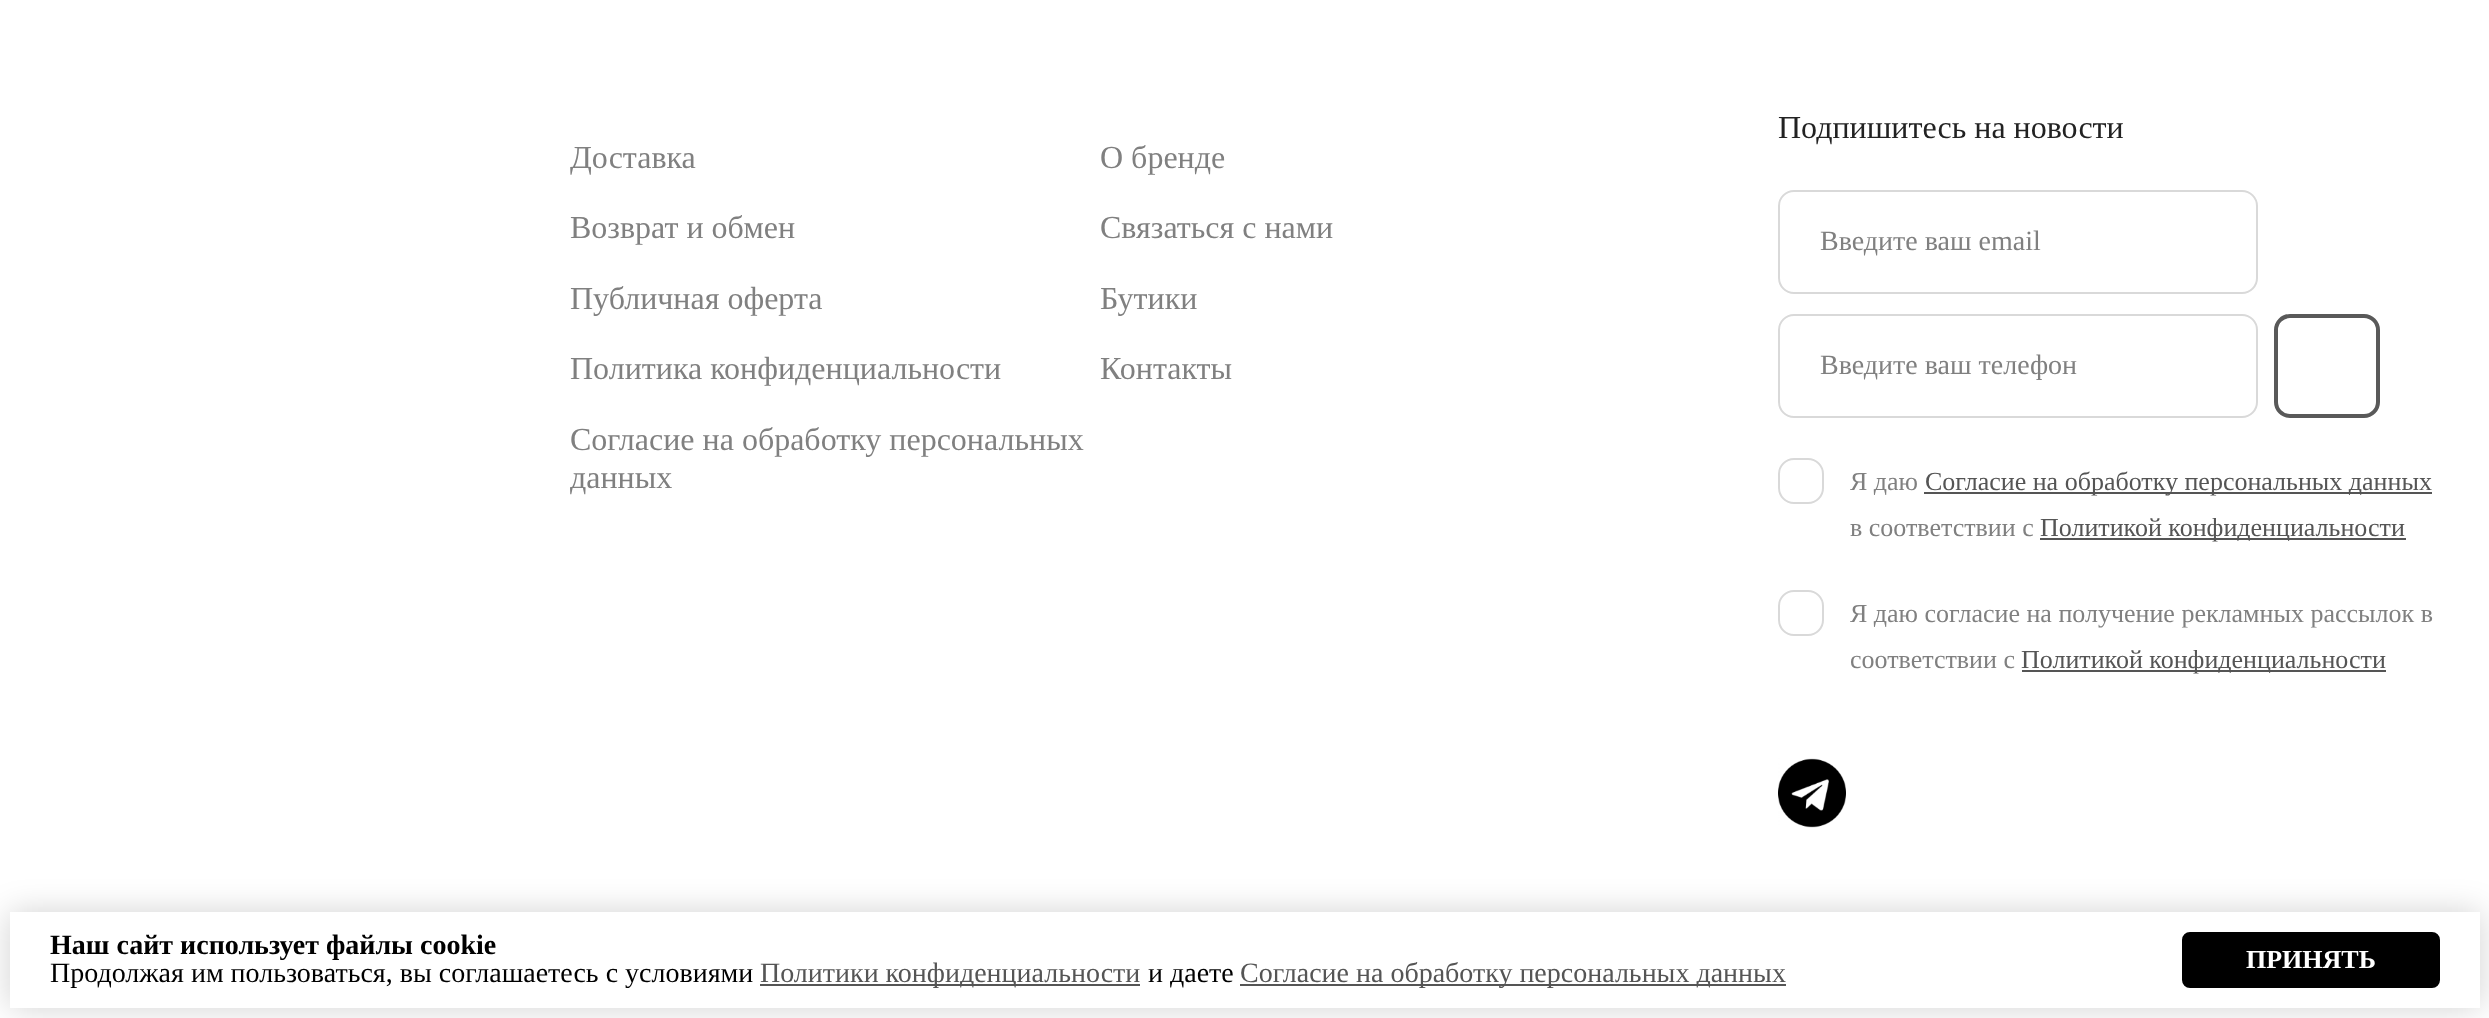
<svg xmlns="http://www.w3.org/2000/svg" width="2489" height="1018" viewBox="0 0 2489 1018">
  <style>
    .t1 { font: 32px Liberation Serif; fill: #808080; }
    .t2 { font: 32px Liberation Serif; fill: #222; }
    .t3 { font: 28px Liberation Serif; fill: #808080; }
    .t4 { font: 26px Liberation Serif; fill: #808080; }
    .t5 { font: 26px Liberation Serif; fill: #555; }
    .t6 { font: bold 28px Liberation Serif; fill: #000; }
    .t7 { font: 28px Liberation Serif; fill: #000; }
    .t8 { font: 28px Liberation Serif; fill: #555; }
    .t9 { font: bold 26px Liberation Serif; fill: #fff; }
  </style>
  <defs>
    <clipPath id="clip1"><path d="M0 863H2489V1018H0ZM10 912H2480V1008H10Z" clip-rule="evenodd"/></clipPath>
  </defs>
  <rect width="100%" height="100%" fill="#fff"/>
  <text x="570" y="168" class="t1">Доставка</text>
  <text x="570" y="238" class="t1">Возврат и обмен</text>
  <text x="570" y="309" class="t1">Публичная оферта</text>
  <text x="570" y="379" class="t1">Политика конфиденциальности</text>
  <text x="570" y="450" class="t1">Согласие на обработку персональных</text>
  <text x="570" y="488" class="t1">данных</text>
  <text x="1100" y="168" class="t1">О бренде</text>
  <text x="1100" y="238" class="t1">Связаться с нами</text>
  <text x="1100" y="309" class="t1">Бутики</text>
  <text x="1100" y="379" class="t1">Контакты</text>
  <text x="1778" y="138" class="t2">Подпишитесь на новости</text>
  <rect x="1779" y="191" width="478" height="102" rx="15" fill="none" stroke="#d9d9d9" stroke-width="2"/>
  <text x="1820" y="250" class="t3">Введите ваш email</text>
  <rect x="1779" y="315" width="478" height="102" rx="15" fill="none" stroke="#d9d9d9" stroke-width="2"/>
  <text x="1820" y="374" class="t3">Введите ваш телефон</text>
  <rect x="2276" y="316" width="102" height="100" rx="14" fill="none" stroke="#595959" stroke-width="4"/>
  <rect x="1779" y="459" width="44" height="44" rx="15" fill="none" stroke="#d9d9d9" stroke-width="2"/>
  <text x="1850" y="490" class="t4">Я даю</text>
  <rect x="1924" y="492" width="508" height="2" fill="#555"/>
  <text x="1925" y="490" class="t5">Согласие на обработку персональных данных</text>
  <text x="1850" y="536" class="t4">в соответствии с</text>
  <rect x="2040" y="538" width="366" height="2" fill="#555"/>
  <text x="2040" y="536" class="t5">Политикой конфиденциальности</text>
  <rect x="1779" y="591" width="44" height="44" rx="15" fill="none" stroke="#d9d9d9" stroke-width="2"/>
  <text x="1850" y="622" class="t4">Я даю согласие на получение рекламных рассылок в</text>
  <text x="1850" y="668" class="t4">соответствии с</text>
  <rect x="2022" y="670" width="364" height="2" fill="#555"/>
  <text x="2021" y="668" class="t5">Политикой конфиденциальности</text>
  <image x="1778" y="758" width="68" height="70" href="images/1.png"/>
  <g clip-path="url(#clip1)">
    <rect x="10" y="912" width="2470" height="96" fill="#0000002e" filter="blur(16px)"/>
  </g>
  <text x="50" y="954" class="t6">Наш сайт использует файлы cookie</text>
  <text x="50" y="982" class="t7">Продолжая им пользоваться, вы соглашаетесь c условиями</text>
  <rect x="760" y="984" width="380" height="2" fill="#555"/>
  <text x="760" y="982" class="t8">Политики конфиденциальности</text>
  <text x="1148" y="982" class="t7">и даете</text>
  <rect x="1240" y="984" width="546" height="2" fill="#555"/>
  <text x="1240" y="982" class="t8">Согласие на обработку персональных данных</text>
  <rect x="2184" y="934" width="254" height="52" rx="6" fill="#000" stroke="#000" stroke-width="4"/>
  <text x="2246" y="968" class="t9">ПРИНЯТЬ</text>
</svg>
